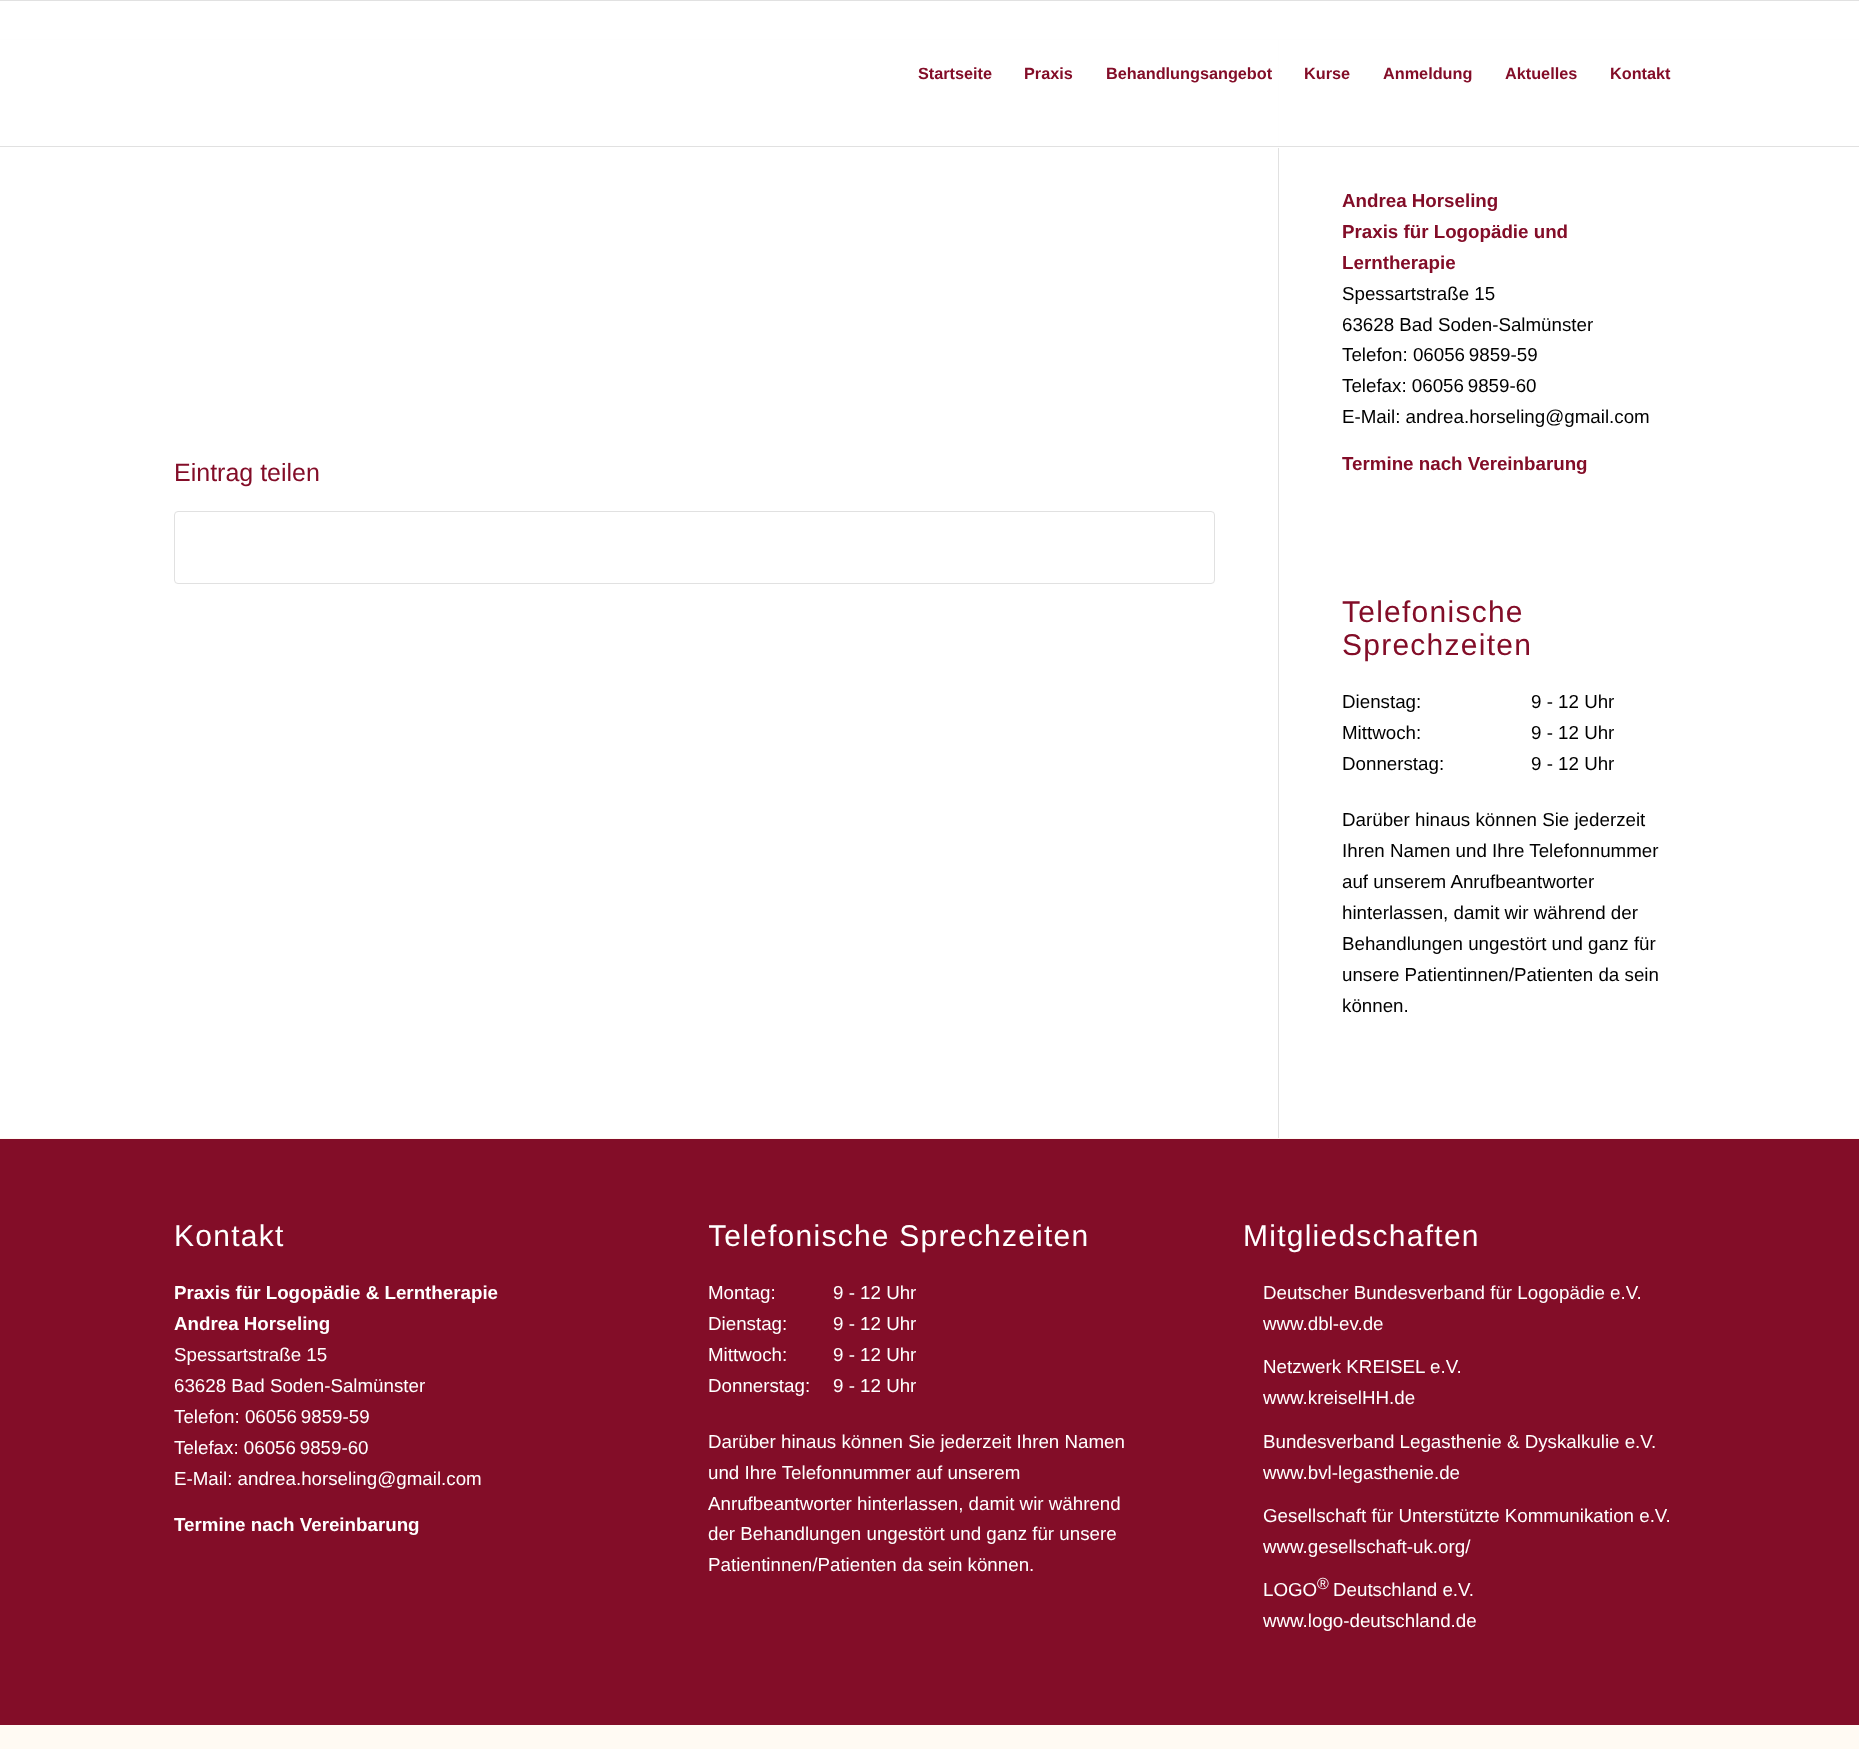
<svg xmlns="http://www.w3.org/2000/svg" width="1859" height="1749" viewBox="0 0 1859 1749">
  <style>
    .t1 { font: bold 16.25px Liberation Sans; fill: #830d28; }
    .t2 { font: 25px Liberation Sans; fill: #830d28; }
    .t3 { font: bold 18.75px Liberation Sans; fill: #830d28; }
    .t4 { font: 18.75px Liberation Sans; fill: #000; }
    .t5 { font: 30px Liberation Sans; letter-spacing: 1.25px; fill: #830d28; }
    .t6 { font: 30px Liberation Sans; letter-spacing: 1.25px; fill: #fff; }
    .t7 { font: bold 18.75px Liberation Sans; fill: #fff; }
    .t8 { font: 18.75px Liberation Sans; fill: #fff; }
    .t9 { font: 16px Liberation Sans; fill: #fff; }
  </style>
  <defs>
    <clipPath id="clip1"><rect x="709" y="1195" width="442" height="403"/></clipPath>
  </defs>
  <rect width="100%" height="100%" fill="#fff"/>
  <rect x="0" y="39" width="1859" height="1" fill="#e1e1e1"/>
  <rect x="1278" y="40" width="1" height="1098" fill="#e1e1e1"/>
  <rect x="0" y="39" width="1859" height="109" fill="#fffffff2"/>
  <rect x="0" y="0" width="1859" height="1" fill="#e1e1e1"/>
  <rect x="0" y="146" width="1859" height="1" fill="#e1e1e1"/>
  <text x="918" y="79" class="t1">Startseite</text>
  <text x="1024" y="79" class="t1">Praxis</text>
  <text x="1106" y="79" class="t1">Behandlungsangebot</text>
  <text x="1304" y="79" class="t1">Kurse</text>
  <text x="1383" y="79" class="t1">Anmeldung</text>
  <text x="1505" y="79" class="t1">Aktuelles</text>
  <text x="1610" y="79" class="t1">Kontakt</text>
  <text x="174" y="481" class="t2">Eintrag teilen</text>
  <rect x="174.5" y="511.5" width="1040" height="72" rx="3.5" fill="none" stroke="#e1e1e1"/>
  <text x="1342" y="207" class="t3">Andrea Horseling</text>
  <text x="1342" y="238" class="t3">Praxis für Logopädie und</text>
  <text x="1342" y="269" class="t3">Lerntherapie</text>
  <text x="1342" y="300" class="t4">Spessartstraße 15</text>
  <text x="1342" y="331" class="t4">63628 Bad Soden-Salmünster</text>
  <text x="1342" y="361" class="t4">Telefon: 06056 9859-59</text>
  <text x="1342" y="392" class="t4">Telefax: 06056 9859-60</text>
  <text x="1342" y="423" class="t4">E-Mail: andrea.horseling@gmail.com</text>
  <text x="1342" y="470" class="t3">Termine nach Vereinbarung</text>
  <text x="1342" y="622" class="t5">Telefonische</text>
  <text x="1342" y="655" class="t5">Sprechzeiten</text>
  <text x="1342" y="708" class="t4">Dienstag:</text>
  <text x="1531" y="708" class="t4">9 - 12 Uhr</text>
  <text x="1342" y="739" class="t4">Mittwoch:</text>
  <text x="1531" y="739" class="t4">9 - 12 Uhr</text>
  <text x="1342" y="770" class="t4">Donnerstag:</text>
  <text x="1531" y="770" class="t4">9 - 12 Uhr</text>
  <text x="1342" y="826" class="t4">Darüber hinaus können Sie jederzeit</text>
  <text x="1342" y="857" class="t4">Ihren Namen und Ihre Telefonnummer</text>
  <text x="1342" y="888" class="t4">auf unserem Anrufbeantworter</text>
  <text x="1342" y="919" class="t4">hinterlassen, damit wir während der</text>
  <text x="1342" y="950" class="t4">Behandlungen ungestört und ganz für</text>
  <text x="1342" y="981" class="t4">unsere Patientinnen/Patienten da sein</text>
  <text x="1342" y="1012" class="t4">können.</text>
  <rect x="0" y="1139" width="1859" height="586" fill="#830d28"/>
  <rect x="0" y="1138" width="1859" height="1" fill="#fffaf3"/>
  <text x="174" y="1246" class="t6">Kontakt</text>
  <text x="174" y="1299" class="t7">Praxis für Logopädie &amp; Lerntherapie</text>
  <text x="174" y="1330" class="t7">Andrea Horseling</text>
  <text x="174" y="1361" class="t8">Spessartstraße 15</text>
  <text x="174" y="1392" class="t8">63628 Bad Soden-Salmünster</text>
  <text x="174" y="1423" class="t8">Telefon: 06056 9859-59</text>
  <text x="174" y="1454" class="t8">Telefax: 06056 9859-60</text>
  <text x="174" y="1485" class="t8">E-Mail: andrea.horseling@gmail.com</text>
  <text x="174" y="1531" class="t7">Termine nach Vereinbarung</text>
  <g clip-path="url(#clip1)">
    <text x="708" y="1246" class="t6">Telefonische Sprechzeiten</text>
  </g>
  <text x="708" y="1299" class="t8">Montag:</text>
  <text x="833" y="1299" class="t8">9 - 12 Uhr</text>
  <text x="708" y="1330" class="t8">Dienstag:</text>
  <text x="833" y="1330" class="t8">9 - 12 Uhr</text>
  <text x="708" y="1361" class="t8">Mittwoch:</text>
  <text x="833" y="1361" class="t8">9 - 12 Uhr</text>
  <text x="708" y="1392" class="t8">Donnerstag:</text>
  <text x="833" y="1392" class="t8">9 - 12 Uhr</text>
  <text x="708" y="1448" class="t8">Darüber hinaus können Sie jederzeit Ihren Namen</text>
  <text x="708" y="1479" class="t8">und Ihre Telefonnummer auf unserem</text>
  <text x="708" y="1510" class="t8">Anrufbeantworter hinterlassen, damit wir während</text>
  <text x="708" y="1540" class="t8">der Behandlungen ungestört und ganz für unsere</text>
  <text x="708" y="1571" class="t8">Patientinnen/Patienten da sein können.</text>
  <text x="1243" y="1246" class="t6">Mitgliedschaften</text>
  <text x="1263" y="1299" class="t8">Deutscher Bundesverband für Logopädie e.V.</text>
  <text x="1263" y="1330" class="t8">www.dbl-ev.de</text>
  <text x="1263" y="1373" class="t8">Netzwerk KREISEL e.V.</text>
  <text x="1263" y="1404" class="t8">www.kreiselHH.de</text>
  <text x="1263" y="1448" class="t8">Bundesverband Legasthenie &amp; Dyskalkulie e.V.</text>
  <text x="1263" y="1479" class="t8">www.bvl-legasthenie.de</text>
  <text x="1263" y="1522" class="t8">Gesellschaft für Unterstützte Kommunikation e.V.</text>
  <text x="1263" y="1553" class="t8">www.gesellschaft-uk.org/</text>
  <text x="1263" y="1596" class="t8">LOGO</text>
  <text x="1317" y="1589" class="t9">®</text>
  <text x="1333" y="1596" class="t8">Deutschland e.V.</text>
  <text x="1263" y="1627" class="t8">www.logo-deutschland.de</text>
  <rect x="0" y="1725" width="1859" height="24" fill="#fffaf3"/>
</svg>
